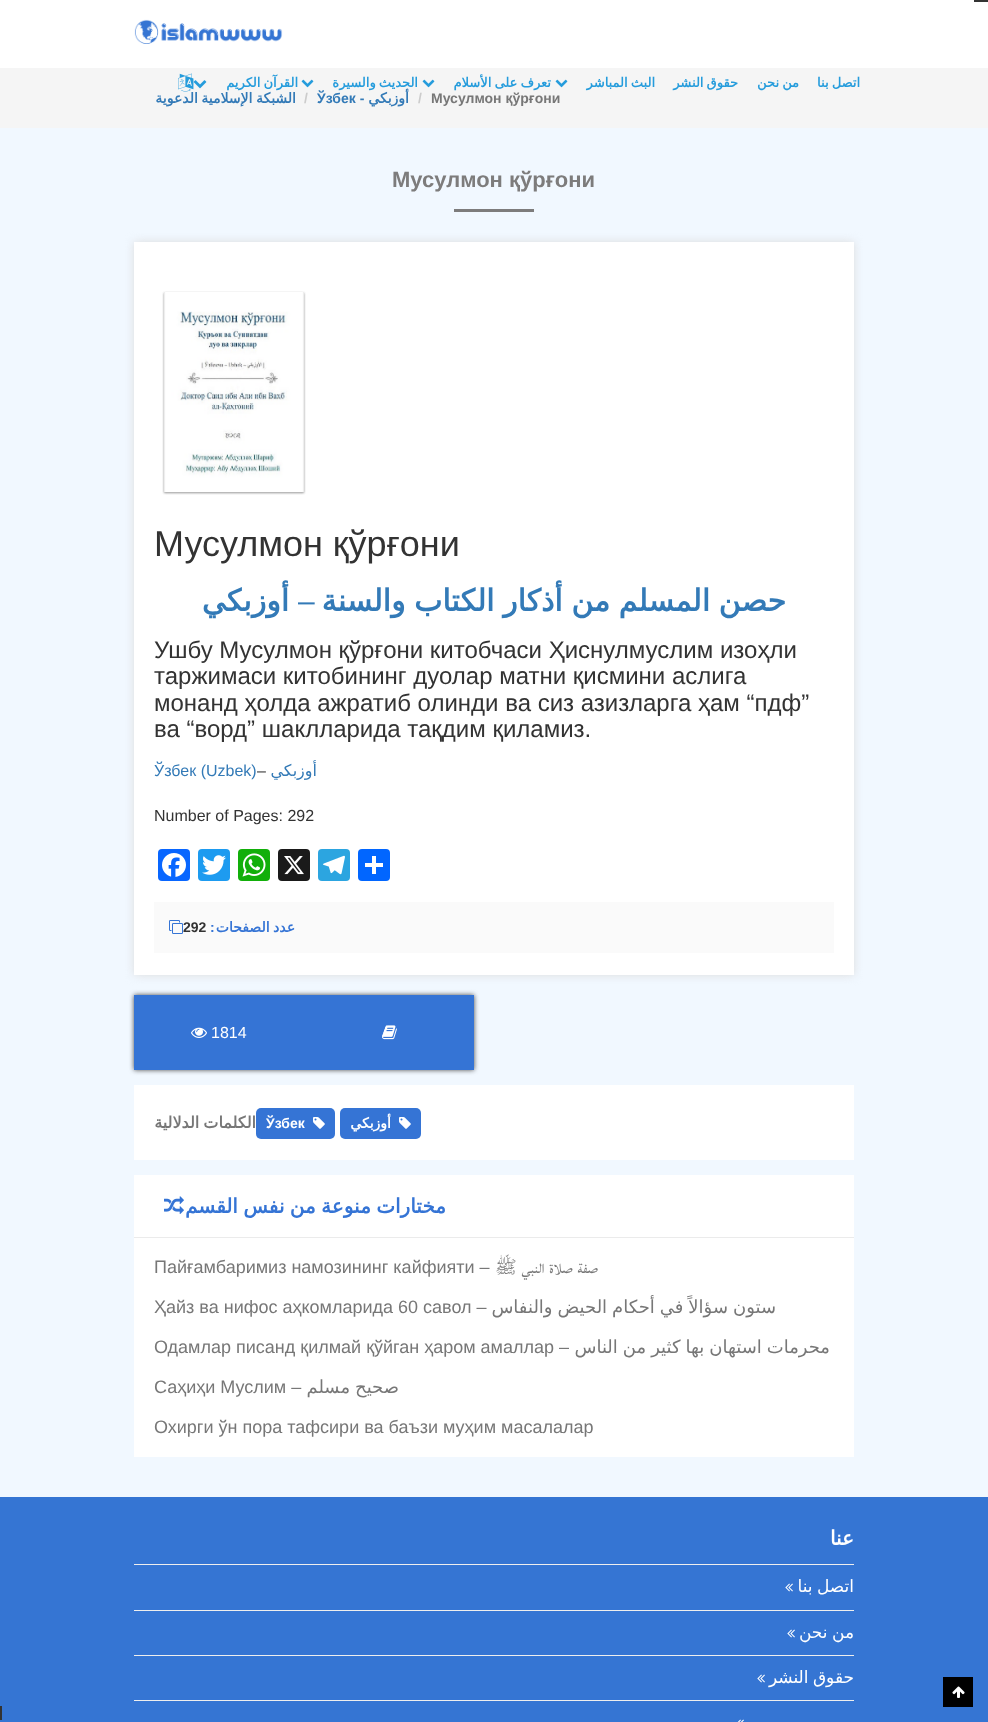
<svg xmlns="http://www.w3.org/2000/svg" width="988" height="1722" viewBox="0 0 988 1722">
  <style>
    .t1 { font: bold 13px DejaVu Sans; direction: rtl; fill: #259cdc; }
    .t2 { font: bold 14px DejaVu Sans; direction: rtl; fill: #337ab7; }
    .t3 { font: bold 14px Liberation Sans; fill: #ccc; }
    .t4 { font: bold 14px Liberation Sans; fill: #337ab7; }
    .t5 { font: bold 14px Liberation Sans; fill: #777; }
    .t6 { font: bold 22px Liberation Sans; fill: #7d7c7c; }
    .t7 { font: 36px Liberation Sans; fill: #333; }
    .t8 { font: bold 30px DejaVu Sans; direction: rtl; fill: #337ab7; }
    .t9 { font: 30px Liberation Sans; fill: #337ab7; }
    .t10 { font: 24px Liberation Sans; fill: #333; }
    .t11 { font: 16px Liberation Sans; fill: #337ab7; }
    .t12 { font: 16px Liberation Sans; fill: #333; }
    .t13 { font: 16px DejaVu Sans; direction: rtl; fill: #337ab7; }
    .t14 { font: bold 14px Liberation Sans; fill: #333; }
    .t15 { font: bold 14px Liberation Sans; fill: #3574d5; }
    .t16 { font: bold 14px DejaVu Sans; direction: rtl; fill: #3574d5; }
    .t17 { font: 16px Liberation Sans; fill: #fff; }
    .t18 { font: bold 16px DejaVu Sans; direction: rtl; fill: #777; }
    .t19 { font: bold 14px Liberation Sans; fill: #fff; }
    .t20 { font: bold 14px DejaVu Sans; direction: rtl; fill: #fff; }
    .t21 { font: bold 20px DejaVu Sans; direction: rtl; fill: #3574d5; }
    .t22 { font: 18px Liberation Sans; fill: #777; }
    .t23 { font: 18px Lateef; direction: rtl; fill: #777; }
    .t24 { font: 18px DejaVu Sans; direction: rtl; fill: #777; }
    .t25 { font: bold 20px DejaVu Sans; direction: rtl; fill: #fff; }
    .t26 { font: 17px DejaVu Sans; direction: rtl; fill: #fff; }
  </style>
  <rect width="100%" height="100%" fill="#f1f8ff"/>
  <rect x="0" y="0" width="988" height="68" fill="#fff"/>
  <rect x="974" y="0" width="14" height="2" fill="#333"/>
  <image x="134" y="19" width="149" height="25" href="images/1.png"/>
  <rect x="0" y="68" width="988" height="60" fill="#f5f5f5"/>
  <image x="178" y="73" width="16" height="19" href="images/2.png"/>
  <image x="193" y="80" width="14" height="9" href="images/3.png"/>
  <text x="298" y="87" word-spacing="-1" class="t1">القرآن الكريم</text>
  <image x="301" y="79" width="13" height="9" href="images/4.png"/>
  <text x="418" y="87" word-spacing="-1" class="t1">الحديث والسيرة</text>
  <image x="422" y="79" width="13" height="9" href="images/4.png"/>
  <text x="551" y="87" word-spacing="-1" class="t1">تعرف على الأسلام</text>
  <image x="555" y="79" width="13" height="9" href="images/4.png"/>
  <text x="655" y="87" word-spacing="-1" class="t1">البث المباشر</text>
  <text x="738" y="87" word-spacing="-1" class="t1">حقوق النشر</text>
  <text x="799" y="87" word-spacing="-1" class="t1">من نحن</text>
  <text x="860" y="87" word-spacing="-1" class="t1">اتصل بنا</text>
  <text x="296" y="103" word-spacing="-1" class="t2">الشبكة الإسلامية الدعوية</text>
  <text x="304" y="103" class="t3">/</text>
  <text x="317" y="103" class="t4">Ўзбек -</text>
  <text x="409" y="103" class="t2">أوزبكي</text>
  <text x="418" y="103" class="t3">/</text>
  <text x="431" y="103" class="t5">Мусулмон қўрғони</text>
  <text x="392" y="187" class="t6">Мусулмон қўрғони</text>
  <rect x="454" y="209" width="80" height="3" fill="#7d7c7c"/>
  <rect x="134" y="242" width="720" height="733" fill="#ddd" filter="blur(5px)"/>
  <rect x="134" y="242" width="720" height="733" fill="#fff"/>
  <rect x="164" y="293" width="140" height="200" fill="#00000038" filter="blur(1px)"/>
  <rect x="164" y="293" width="140" height="200" fill="#00000038" filter="blur(1px)"/>
  <rect x="164" y="292" width="140" height="200" fill="#eee"/>
  <image x="165" y="292" width="138" height="200" href="images/5.png"/>
  <text x="154" y="556" class="t7">Мусулмон қўрғони</text>
  <text x="289" y="611" class="t8">أوزبكي</text>
  <text x="298" y="611" class="t9">–</text>
  <text x="786" y="611" word-spacing="-1" class="t8">حصن المسلم من أذكار الكتاب والسنة</text>
  <text x="154" y="658" class="t10">Ушбу Мусулмон қўрғони китобчаси Ҳиснулмуслим изоҳли</text>
  <text x="154" y="684" class="t10">таржимаси китобининг дуолар матни қисмини аслига</text>
  <text x="154" y="711" class="t10">монанд ҳолда ажратиб олинди ва сиз азизларга ҳам “пдф”</text>
  <text x="154" y="737" class="t10">ва “ворд” шаклларида тақдим қиламиз.</text>
  <text x="154" y="776" class="t11">Ўзбек (Uzbek)</text>
  <text x="257" y="776" class="t12">–</text>
  <text x="317" y="776" class="t13">أوزبكي</text>
  <text x="154" y="821" class="t12">Number of Pages: 292</text>
  <rect x="158" y="849" width="32" height="32" rx="4" fill="#0866ff"/>
  <image x="162" y="853" width="24" height="24" href="images/6.png"/>
  <rect x="198" y="849" width="32" height="32" rx="4" fill="#1d9bf0"/>
  <image x="202" y="855" width="24" height="20" href="images/7.png"/>
  <rect x="238" y="849" width="32" height="32" rx="4" fill="#12af0a"/>
  <image x="242" y="853" width="24" height="24" href="images/8.png"/>
  <rect x="278" y="849" width="32" height="32" rx="4" fill="#1a1a1a"/>
  <image x="284" y="856" width="20" height="19" href="images/9.png"/>
  <rect x="318" y="849" width="32" height="32" rx="4" fill="#2ca5e0"/>
  <image x="323" y="855" width="22" height="20" href="images/10.png"/>
  <rect x="358" y="849" width="32" height="32" rx="4" fill="#0166ff"/>
  <rect x="372" y="856" width="4" height="18" fill="#fff"/>
  <rect x="365" y="863" width="18" height="4" fill="#fff"/>
  <rect x="154" y="902" width="680" height="51" fill="#fafafa"/>
  <image x="169" y="920" width="14" height="14" href="images/11.png"/>
  <text x="183" y="932" class="t14">292</text>
  <text x="210" y="932" class="t15">:</text>
  <text x="295" y="932" word-spacing="-1" class="t16">عدد الصفحات</text>
  <rect x="134" y="995" width="340" height="75" fill="#474747" filter="blur(2.5px)"/>
  <rect x="134" y="995" width="340" height="75" fill="#3574d5"/>
  <image x="191" y="1027" width="16" height="11" href="images/12.png"/>
  <text x="211" y="1038" class="t17">1814</text>
  <image x="382" y="1025" width="15" height="15" href="images/13.png"/>
  <rect x="134" y="1085" width="720" height="75" fill="#fff"/>
  <text x="256" y="1128" word-spacing="-1" class="t18">الكلمات الدلالية</text>
  <rect x="256" y="1108" width="79" height="31" rx="5" fill="#3574d5"/>
  <text x="266" y="1128" class="t19">Ўзбек</text>
  <image x="313" y="1117" width="12" height="12" href="images/14.png"/>
  <rect x="340" y="1108" width="81" height="31" rx="5" fill="#3574d5"/>
  <text x="391" y="1128" class="t20">أوزبكي</text>
  <image x="399" y="1117" width="12" height="12" href="images/14.png"/>
  <rect x="134" y="1175" width="720" height="282" fill="#fff"/>
  <rect x="134" y="1237" width="720" height="1" fill="#ebebeb"/>
  <image x="164" y="1196" width="20" height="18" href="images/15.png"/>
  <text x="446" y="1213" word-spacing="-1" class="t21">مختارات منوعة من نفس القسم</text>
  <text x="154" y="1273" class="t22">Пайғамбаримиз намозининг кайфияти –</text>
  <text x="598" y="1273" word-spacing="2" class="t23">صفة صلاة النبي ﷺ</text>
  <text x="154" y="1313" class="t22">Ҳайз ва нифос аҳкомларида 60 савол –</text>
  <text x="776" y="1313" word-spacing="-0.75" class="t24">ستون سؤالاً في أحكام الحيض والنفاس</text>
  <text x="154" y="1353" class="t22">Одамлар писанд қилмай қўйган ҳаром амаллар –</text>
  <text x="830" y="1353" word-spacing="-0.75" class="t24">محرمات استهان بها كثير من الناس</text>
  <text x="154" y="1393" class="t22">Саҳиҳи Муслим –</text>
  <text x="399" y="1393" word-spacing="-0.75" class="t24">صحيح مسلم</text>
  <text x="154" y="1433" class="t22">Охирги ўн пора тафсири ва баъзи муҳим масалалар</text>
  <rect x="0" y="1497" width="988" height="225" fill="#3575d3"/>
  <rect x="134" y="1564" width="720" height="1" fill="#eee"/>
  <text x="854" y="1545" class="t25">عنا</text>
  <rect x="134" y="1610" width="720" height="1" fill="#eee"/>
  <image x="785" y="1583" width="8" height="9" href="images/16.png"/>
  <text x="854" y="1592" word-spacing="-1" class="t26">اتصل بنا</text>
  <rect x="134" y="1655" width="720" height="1" fill="#eee"/>
  <image x="787" y="1629" width="8" height="9" href="images/16.png"/>
  <text x="854" y="1638" word-spacing="-1" class="t26">من نحن</text>
  <rect x="134" y="1700" width="720" height="1" fill="#eee"/>
  <image x="757" y="1674" width="8" height="9" href="images/16.png"/>
  <text x="854" y="1683" word-spacing="-1" class="t26">حقوق النشر</text>
  <image x="737" y="1719" width="7" height="3" href="images/17.png"/>
  <rect x="943" y="1677" width="30" height="30" fill="#000"/>
  <image x="952" y="1686" width="13" height="12" href="images/18.png"/>
  <rect x="0" y="1706" width="2" height="14" fill="#333"/>
</svg>
